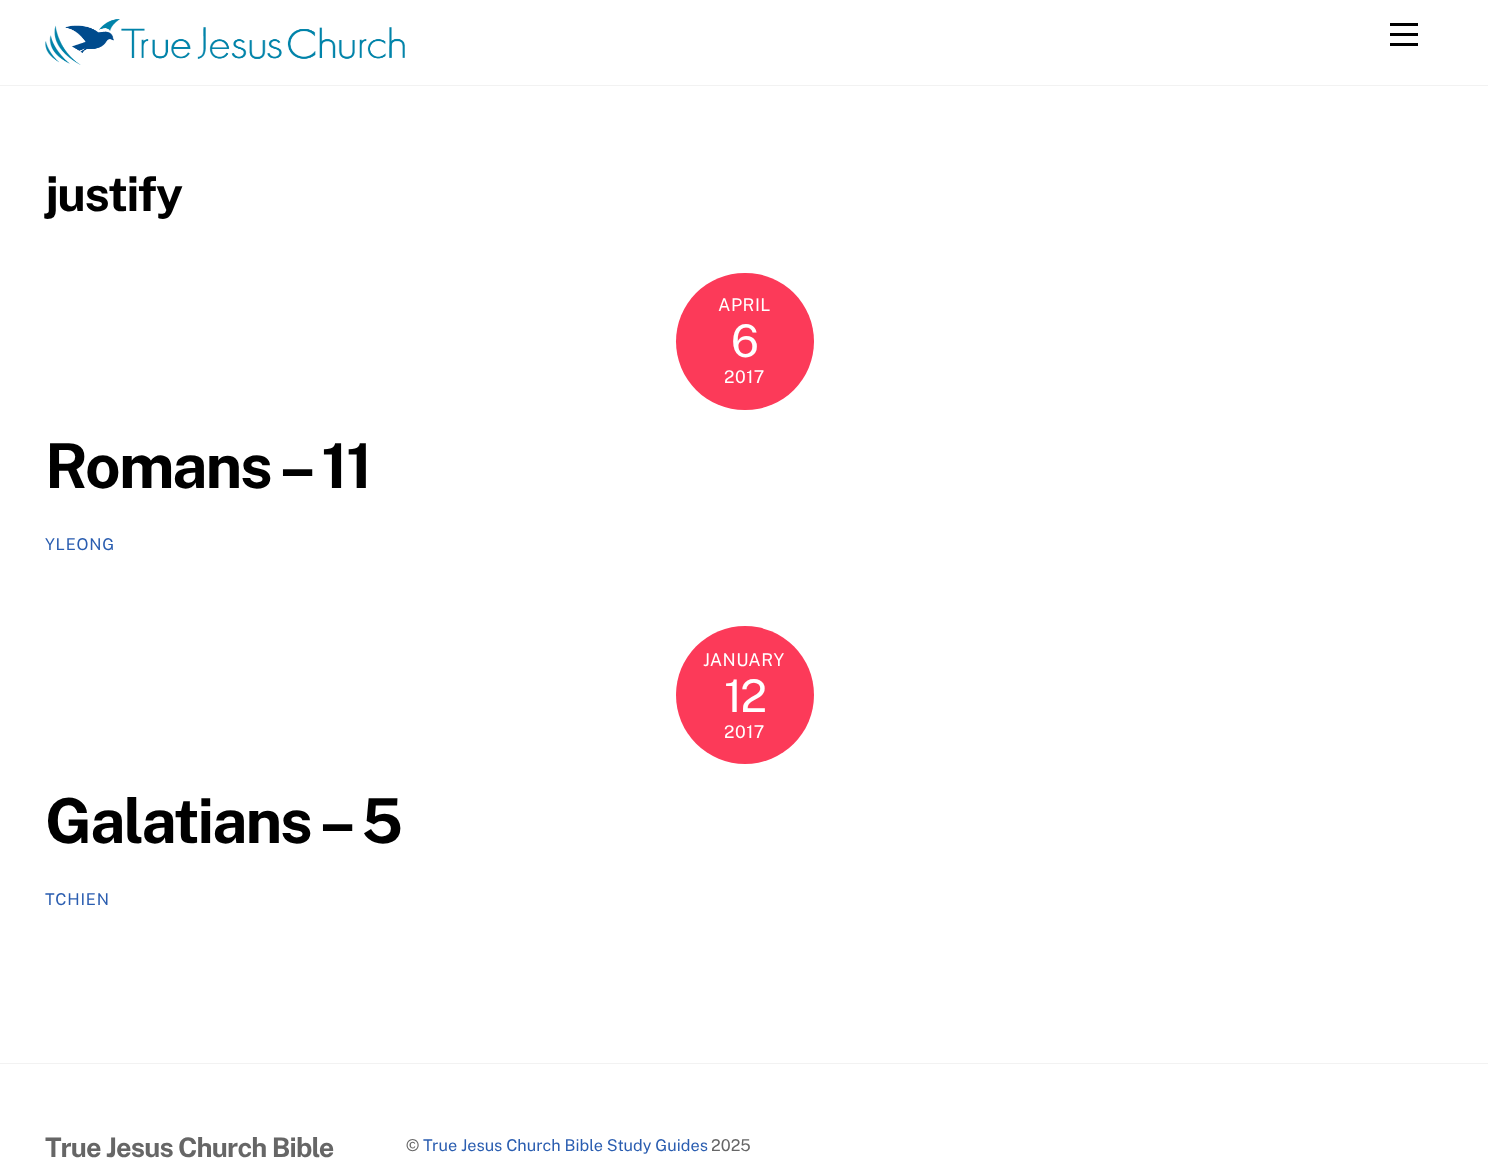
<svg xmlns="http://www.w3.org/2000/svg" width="1488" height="1171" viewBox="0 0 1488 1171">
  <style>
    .t1 { font: bold 48px Public Sans; letter-spacing: -1.5px; fill: #000; }
    .t2 { font: 17.5px Public Sans; letter-spacing: 0.5px; fill: #fff; }
    .t3 { font: 45px Public Sans; letter-spacing: -2px; fill: #fff; }
    .t4 { font: bold 62px Public Sans; letter-spacing: -1.9px; fill: #000; }
    .t5 { font: 16.25px Public Sans; letter-spacing: 0.75px; fill: #2a5db0; }
    .t6 { font: bold 27px Public Sans; letter-spacing: -0.8px; fill: #666; }
    .t7 { font: 16.25px Public Sans; fill: #666; }
    .t8 { font: 16.25px Public Sans; fill: #2a5db0; }
  </style>
  <rect width="100%" height="100%" fill="#fff"/>
  <rect x="0" y="85" width="1488" height="1" fill="#f2f2f2"/>
  <image x="45" y="19" width="360" height="46" href="images/1.png"/>
  <rect x="1390" y="43" width="28" height="3" fill="#000"/>
  <rect x="1390" y="23" width="28" height="3" fill="#000"/>
  <rect x="1390" y="33" width="28" height="3" fill="#000"/>
  <text x="45" y="211" class="t1">justify</text>
  <rect x="676" y="273" width="138" height="137" rx="68.5" fill="#fc3a59"/>
  <text x="718" y="311" class="t2">APRIL</text>
  <text x="731" y="357" class="t3">6</text>
  <text x="724" y="383" class="t2">2017</text>
  <text x="45" y="488" class="t4">Romans – 11</text>
  <text x="45" y="550" class="t5">YLEONG</text>
  <circle cx="745" cy="695" r="69" fill="#fc3a59"/>
  <text x="703" y="666" class="t2">JANUARY</text>
  <text x="724" y="712" class="t3">12</text>
  <text x="724" y="738" class="t2">2017</text>
  <text x="45" y="843" class="t4">Galatians – 5</text>
  <text x="45" y="905" class="t5">TCHIEN</text>
  <rect x="0" y="1063" width="1488" height="1" fill="#f2f2f2"/>
  <text x="45" y="1157" class="t6">True Jesus Church Bible</text>
  <text x="406" y="1151" class="t7">©</text>
  <text x="423" y="1151" class="t8">True Jesus Church Bible Study Guides</text>
  <text x="711" y="1151" class="t7">2025</text>
</svg>
